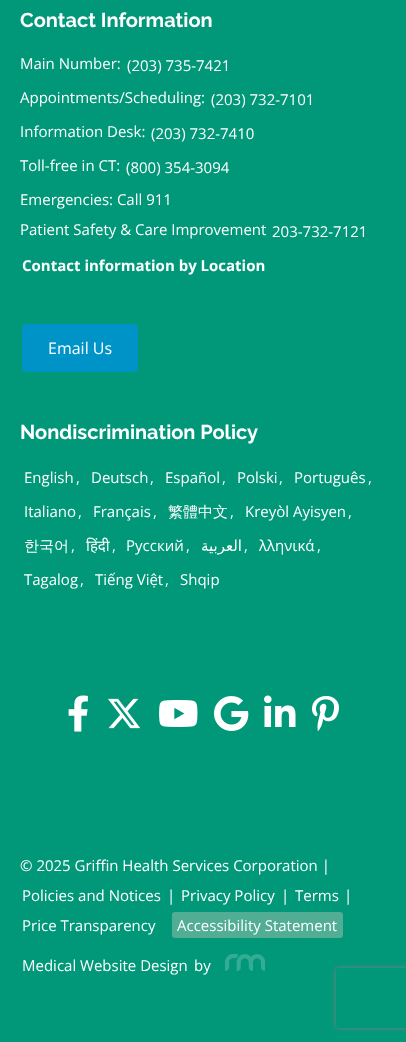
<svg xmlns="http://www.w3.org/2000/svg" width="406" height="1042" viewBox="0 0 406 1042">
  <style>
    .t1 { font: bold 20px Raleway; fill: #fff; }
    .t2 { font: 15px Open Sans; fill: #fff; }
    .t3 { font: bold 15px Open Sans; fill: #fff; }
    .t4 { font: 16px Open Sans; fill: #fff; }
    .t5 { font: 500 15px WenQuanYi Zen Hei; fill: #fff; }
    .t6 { font: 15px Noto Sans; fill: #fff; }
    .t7 { font: 15px DejaVu Sans; direction: rtl; fill: #fff; }
  </style>
  <defs>
    <clipPath id="clip1"><path d="M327 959H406V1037H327ZM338 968H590C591 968 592 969 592 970V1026C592 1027 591 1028 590 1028H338C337 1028 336 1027 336 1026V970C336 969 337 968 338 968Z" clip-rule="evenodd"/></clipPath>
  </defs>
  <rect width="100%" height="100%" fill="#009879"/>
  <text x="20" y="27" class="t1">Contact Information</text>
  <text x="20" y="69" class="t2">Main Number:</text>
  <text x="127" y="71" class="t2">(203) 735-7421</text>
  <text x="20" y="103" class="t2">Appointments/Scheduling:</text>
  <text x="211" y="105" class="t2">(203) 732-7101</text>
  <text x="20" y="137" class="t2">Information Desk:</text>
  <text x="151" y="139" class="t2">(203) 732-7410</text>
  <text x="20" y="171" class="t2">Toll-free in CT:</text>
  <text x="126" y="173" class="t2">(800) 354-3094</text>
  <text x="20" y="205" class="t2">Emergencies: Call 911</text>
  <text x="20" y="235" class="t2">Patient Safety &amp; Care Improvement</text>
  <text x="272" y="237" class="t2">203-732-7121</text>
  <text x="22" y="271" class="t3">Contact information by Location</text>
  <rect x="22.5" y="324.5" width="115" height="47" rx="3.5" fill="#0093c8" stroke="#0093c8"/>
  <text x="48" y="354" class="t4">Email Us</text>
  <text x="20" y="439" class="t1">Nondiscrimination Policy</text>
  <text x="24" y="483" class="t2">English</text>
  <text x="76" y="483" class="t2">,</text>
  <text x="91" y="483" class="t2">Deutsch</text>
  <text x="150" y="483" class="t2">,</text>
  <text x="165" y="483" class="t2">Español</text>
  <text x="222" y="483" class="t2">,</text>
  <text x="237" y="483" class="t2">Polski</text>
  <text x="279" y="483" class="t2">,</text>
  <text x="294" y="483" class="t2">Português</text>
  <text x="368" y="483" class="t2">,</text>
  <text x="24" y="517" class="t2">Italiano</text>
  <text x="78" y="517" class="t2">,</text>
  <text x="93" y="517" class="t2">Français</text>
  <text x="153" y="517" class="t2">,</text>
  <text x="168" y="517" class="t5">繁體中文</text>
  <text x="230" y="517" class="t2">,</text>
  <text x="245" y="517" class="t2">Kreyòl Ayisyen</text>
  <text x="348" y="517" class="t2">,</text>
  <text x="24" y="551" class="t5">한국어</text>
  <text x="71" y="551" class="t2">,</text>
  <text x="86" y="551" class="t6">हिंदी</text>
  <text x="112" y="551" class="t2">,</text>
  <text x="126" y="551" class="t2">Русский</text>
  <text x="186" y="551" class="t2">,</text>
  <text x="242" y="551" class="t7">العربية</text>
  <text x="244" y="551" class="t2">,</text>
  <text x="259" y="551" class="t2">λληνικά</text>
  <text x="317" y="551" class="t2">,</text>
  <text x="24" y="585" class="t2">Tagalog</text>
  <text x="80" y="585" class="t2">,</text>
  <text x="95" y="585" class="t2">Tiếng Việt</text>
  <text x="165" y="585" class="t2">,</text>
  <text x="180" y="585" class="t2">Shqip</text>
  <image x="68" y="695" width="20" height="37" href="images/1.png"/>
  <image x="108" y="698" width="33" height="31" href="images/2.png"/>
  <image x="159" y="700" width="39" height="27" href="images/3.png"/>
  <image x="214" y="696" width="35" height="35" href="images/4.png"/>
  <image x="264" y="695" width="32" height="32" href="images/5.png"/>
  <image x="312" y="695" width="27" height="36" href="images/6.png"/>
  <text x="20" y="871" class="t2">© 2025 Griffin Health Services Corporation |</text>
  <text x="22" y="901" class="t2">Policies and Notices</text>
  <text x="167" y="901" class="t2">|</text>
  <text x="181" y="901" class="t2">Privacy Policy</text>
  <text x="281" y="901" class="t2">|</text>
  <text x="295" y="901" class="t2">Terms</text>
  <text x="344" y="901" class="t2">|</text>
  <text x="22" y="931" class="t2">Price Transparency</text>
  <rect x="172" y="912" width="171" height="26" rx="3" fill="#51ad93"/>
  <text x="177" y="931" class="t2">Accessibility Statement</text>
  <text x="22" y="971" class="t2">Medical Website Design</text>
  <text x="194" y="971" class="t2">by</text>
  <image x="225" y="954" width="40" height="17" href="images/7.png"/>
  <g clip-path="url(#clip1)">
    <rect x="336" y="968" width="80" height="60" rx="2" fill="#808080" filter="blur(2.5px)"/>
  </g>
</svg>
